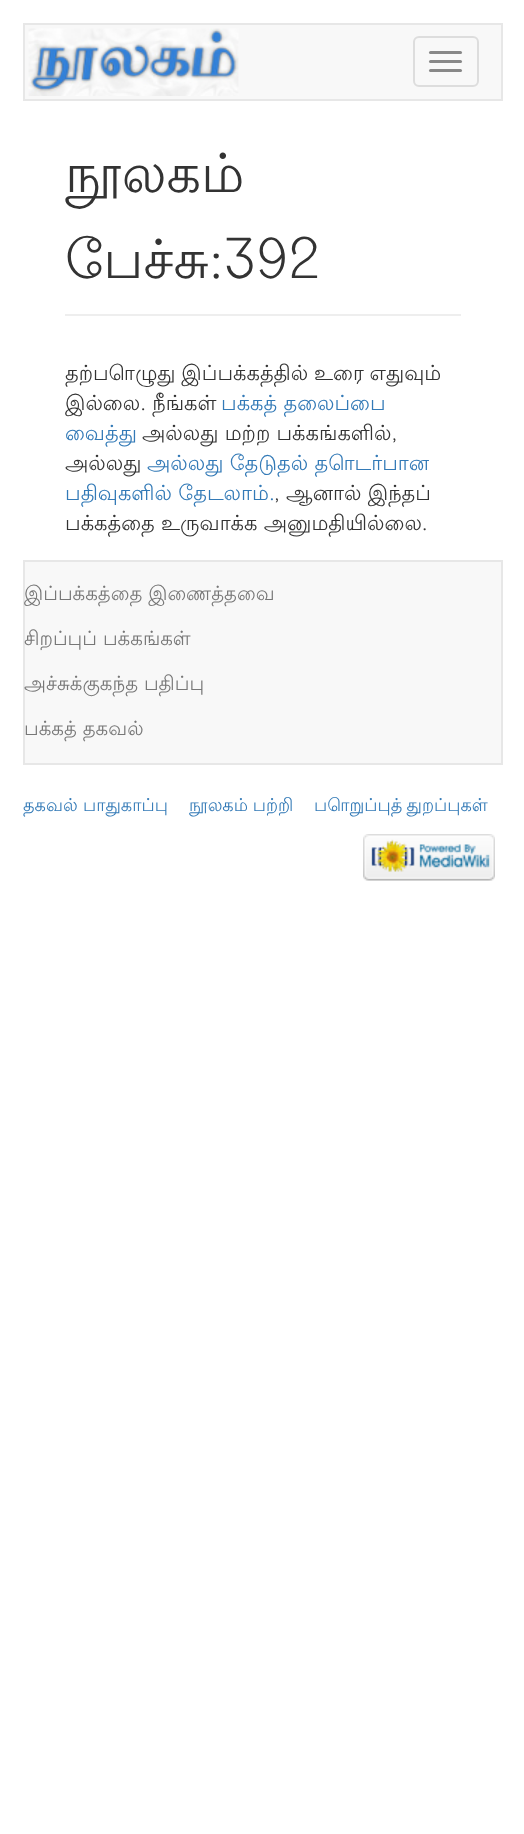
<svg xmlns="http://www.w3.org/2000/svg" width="524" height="1834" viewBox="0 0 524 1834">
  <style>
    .t1 { font: 54px Lohit Tamil; fill: #333; }
    .t2 { font: 21px Lohit Tamil; fill: #333; }
    .t3 { font: 21px Lohit Tamil; fill: #337ab7; }
    .t4 { font: 19.75px Lohit Tamil; fill: #777; }
    .t5 { font: 17.75px Lohit Tamil; fill: #337ab7; }
  </style>
  <rect width="100%" height="100%" fill="#fff"/>
  <rect x="24" y="24" width="478" height="76" fill="#f8f8f8" stroke="#e7e7e7" stroke-width="2"/>
  <image x="28" y="28" width="211" height="68" href="images/1.png"/>
  <rect x="414" y="37" width="64" height="49" rx="5" fill="none" stroke="#ddd" stroke-width="2"/>
  <rect x="429" y="51" width="33" height="3" rx="1.5" fill="#888"/>
  <rect x="429" y="60" width="33" height="3" rx="1.5" fill="#888"/>
  <rect x="429" y="69" width="33" height="3" rx="1.5" fill="#888"/>
  <rect x="65" y="314" width="396" height="2" fill="#eee"/>
  <text x="65" y="192" class="t1">நூலகம்</text>
  <text x="65" y="278" class="t1">பேச்சு:392</text>
  <text x="65" y="380" word-spacing="-0.5" class="t2">தற்பொழுது இப்பக்கத்தில் உரை எதுவும்</text>
  <text x="65" y="410" class="t2">இல்லை. நீங்கள்</text>
  <text x="221" y="410" class="t3">பக்கத் தலைப்பை</text>
  <text x="65" y="440" class="t3">வைத்து</text>
  <text x="142" y="440" class="t2">அல்லது மற்ற பக்கங்களில்,</text>
  <text x="65" y="470" class="t2">அல்லது</text>
  <text x="147" y="470" class="t3">அல்லது தேடுதல் தொடர்பான</text>
  <text x="65" y="500" class="t3">பதிவுகளில் தேடலாம்.</text>
  <text x="274" y="500" class="t2">, ஆனால் இந்தப்</text>
  <text x="65" y="530" class="t2">பக்கத்தை உருவாக்க அனுமதியில்லை.</text>
  <rect x="24" y="561" width="478" height="203" fill="#f8f8f8" stroke="#e7e7e7" stroke-width="2"/>
  <text x="24" y="600" class="t4">இப்பக்கத்தை இணைத்தவை</text>
  <text x="24" y="645" class="t4">சிறப்புப் பக்கங்கள்</text>
  <text x="24" y="690" class="t4">அச்சுக்குகந்த பதிப்பு</text>
  <text x="24" y="735" class="t4">பக்கத் தகவல்</text>
  <text x="23" y="811" class="t5">தகவல் பாதுகாப்பு</text>
  <text x="189" y="811" word-spacing="-0.5" class="t5">நூலகம் பற்றி</text>
  <text x="314" y="811" word-spacing="-1" class="t5">பொறுப்புத் துறப்புகள்</text>
  <image x="363" y="834" width="132" height="47" href="images/2.png"/>
</svg>
